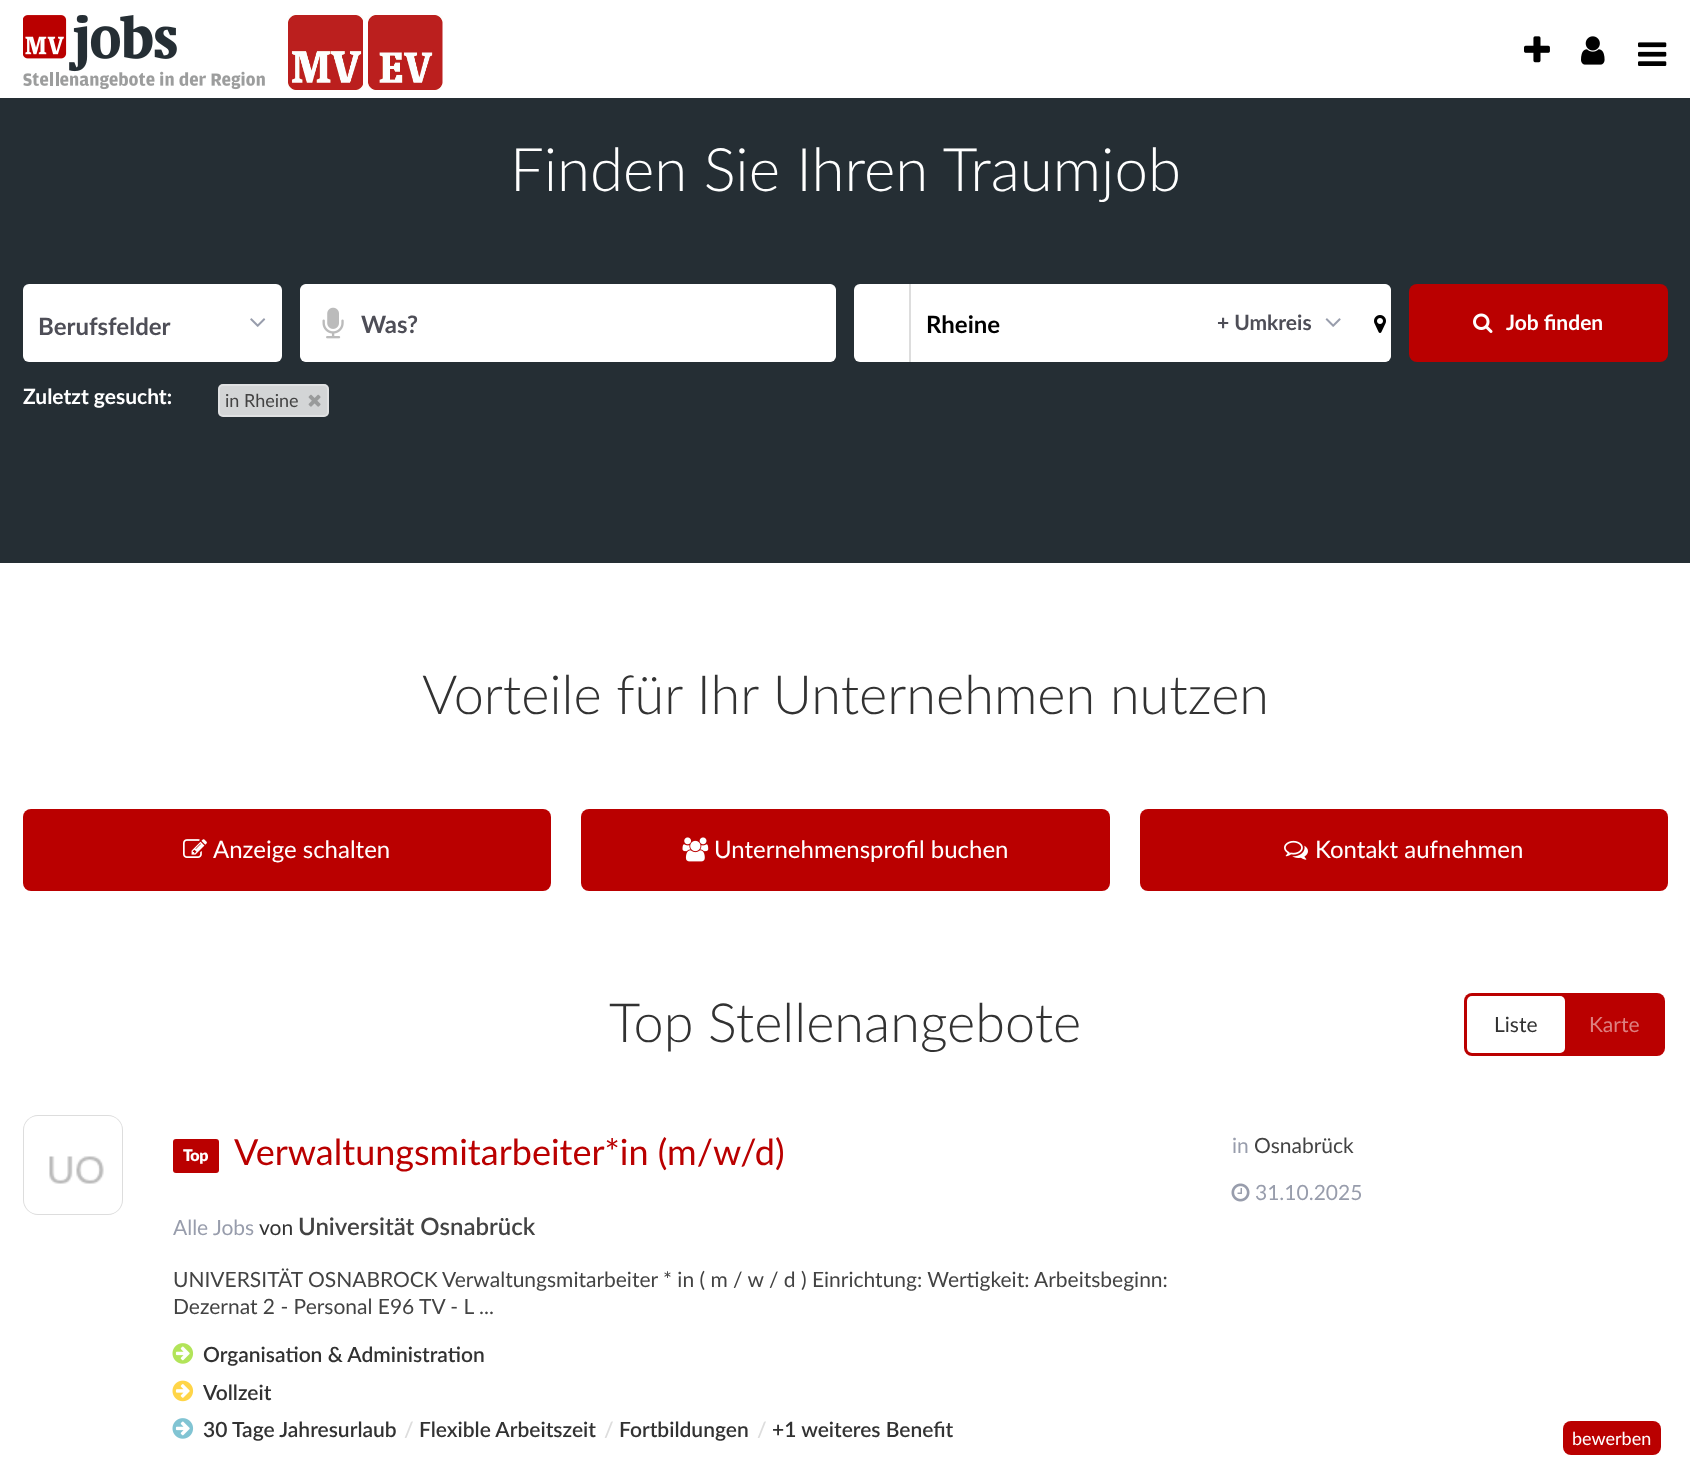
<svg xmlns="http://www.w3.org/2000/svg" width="1690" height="1477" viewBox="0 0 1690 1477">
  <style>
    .t1 { font: 300 60px Lato; fill: #fff; }
    .t2 { font: bold 24px Lato; fill: #4e4e57; }
    .t3 { font: bold 24px Lato; fill: #000; }
    .t4 { font: bold 21px Lato; fill: #4e4e57; }
    .t5 { font: bold 21px Lato; fill: #fff; }
    .t6 { font: 18px Lato; fill: #434343; }
    .t7 { font: 300 54px Lato; fill: #323232; }
    .t8 { font: 24px Lato; fill: #fff; }
    .t9 { font: 21px Lato; fill: #323232; }
    .t10 { font: 21px Lato; fill: #dd8080; }
    .t11 { font: 800 16px Lato; letter-spacing: -0.5px; fill: #fff; }
    .t12 { font: 36px Lato; fill: #ba0000; }
    .t13 { font: 21px Lato; fill: #989dac; }
    .t14 { font: 600 24px Lato; fill: #434343; }
    .t15 { font: 21px Lato; fill: #434343; }
    .t16 { font: 18px Lato; fill: #fff; }
    .t17 { font: 600 21px Lato; fill: #323232; }
    .t18 { font: 600 21px Lato; fill: #ddd; }
  </style>
  <rect width="100%" height="100%" fill="#fff"/>
  <image x="23" y="15" width="242" height="75" href="images/1.png"/>
  <image x="1524" y="36" width="26" height="27" href="images/2.png"/>
  <image x="1581" y="36" width="24" height="29" href="images/3.png"/>
  <image x="1638" y="42" width="29" height="24" href="images/4.png"/>
  <image x="288" y="15" width="75" height="75" href="images/5.png"/>
  <image x="368" y="15" width="75" height="75" href="images/6.png"/>
  <rect x="0" y="98" width="1690" height="465" fill="#252e34"/>
  <text x="510" y="191" class="t1">Finden Sie Ihren Traumjob</text>
  <rect x="23" y="284" width="259" height="78" rx="6" fill="#fff"/>
  <text x="38" y="335" class="t2">Berufsfelder</text>
  <image x="250" y="318" width="16" height="9" href="images/7.png"/>
  <rect x="300" y="284" width="536" height="78" rx="6" fill="#fff"/>
  <rect x="301" y="285" width="534" height="76" rx="7" fill="#fff" stroke="#fff" stroke-width="2"/>
  <image x="322" y="307" width="22" height="32" href="images/8.png"/>
  <text x="361" y="333" class="t2">Was?</text>
  <rect x="854" y="284" width="537" height="78" rx="6" fill="#fff"/>
  <rect x="909" y="284" width="2" height="78" fill="#ddd"/>
  <text x="926" y="333" class="t3">Rheine</text>
  <text x="1217" y="330" class="t4">+ Umkreis</text>
  <image x="1325" y="318" width="16" height="9" href="images/9.png"/>
  <path d="M1358 284H1383C1387.5 284 1391 287.5 1391 292V354C1391 358.5 1387.5 362 1383 362H1358Z" fill="#fff"/>
  <image x="1374" y="315" width="12" height="18" href="images/10.png"/>
  <rect x="1409" y="284" width="259" height="78" rx="8" fill="#ba0000"/>
  <image x="1473" y="313" width="20" height="20" href="images/11.png"/>
  <text x="1506" y="330" class="t5">Job finden</text>
  <text x="23" y="404" class="t5">Zuletzt gesucht:</text>
  <rect x="218" y="384" width="111" height="33" rx="5" fill="#d3d5d6"/>
  <rect x="219" y="385" width="109" height="31" rx="4" fill="none" stroke="#ffffff4d" stroke-width="2"/>
  <text x="225" y="407" class="t6">in Rheine</text>
  <image x="308" y="394" width="13" height="13" href="images/12.png"/>
  <text x="422" y="714" class="t7">Vorteile für Ihr Unternehmen nutzen</text>
  <rect x="23" y="809" width="528" height="82" rx="8" fill="#ba0000"/>
  <image x="183" y="839" width="24" height="19" href="images/13.png"/>
  <text x="213" y="858" class="t8">Anzeige schalten</text>
  <rect x="581" y="809" width="529" height="82" rx="8" fill="#ba0000"/>
  <image x="682" y="837" width="27" height="25" href="images/14.png"/>
  <text x="714" y="858" class="t8">Unternehmensprofil buchen</text>
  <rect x="1140" y="809" width="528" height="82" rx="8" fill="#ba0000"/>
  <image x="1284" y="840" width="24" height="20" href="images/15.png"/>
  <text x="1315" y="858" class="t8">Kontakt aufnehmen</text>
  <text x="609" y="1042" class="t7">Top Stellenangebote</text>
  <rect x="1464" y="993" width="201" height="63" rx="8" fill="#ba0000"/>
  <rect x="1467" y="996" width="98" height="57" rx="5" fill="#fff"/>
  <text x="1494" y="1032" class="t9">Liste</text>
  <text x="1589" y="1032" class="t10">Karte</text>
  <path d="M38 1115C30 1115 23 1122 23 1130V1200C23 1208 30 1215 38 1215H108C116 1215 123 1208 123 1200V1130C123 1122 116 1115 108 1115Z" fill="#ddd"/>
  <rect x="24" y="1116" width="98" height="98" rx="14" fill="#fff"/>
  <image x="49" y="1156" width="55" height="28" href="images/16.png"/>
  <rect x="173" y="1139" width="46" height="34" rx="3" fill="#ba0000"/>
  <text x="183" y="1161" class="t11">Top</text>
  <text x="234" y="1165" class="t12">Verwaltungsmitarbeiter*in (m/w/d)</text>
  <text x="173" y="1235" class="t13">Alle Jobs</text>
  <text x="259" y="1235" class="t9">von</text>
  <text x="298" y="1235" class="t14">Universität Osnabrück</text>
  <text x="173" y="1287" class="t15">UNIVERSITÄT OSNABROCK</text>
  <text x="442" y="1287" class="t15">Verwaltungsmitarbeiter * in ( m / w / d ) Einrichtung: Wertigkeit:</text>
  <text x="1034" y="1287" class="t15">Arbeitsbeginn:</text>
  <text x="173" y="1314" class="t15">Dezernat 2 - Personal E96 TV - L ...</text>
  <text x="1232" y="1153" class="t13">in</text>
  <text x="1254" y="1153" class="t15">Osnabrück</text>
  <image x="1231" y="1183" width="19" height="19" href="images/17.png"/>
  <text x="1255" y="1200" class="t13">31.10.2025</text>
  <rect x="1563" y="1421" width="98" height="34" rx="8" fill="#ba0000"/>
  <text x="1572" y="1445" class="t16">bewerben</text>
  <image x="172" y="1343" width="22" height="21" href="images/18.png"/>
  <text x="203" y="1362" class="t17">Organisation &amp; Administration</text>
  <image x="172" y="1380" width="22" height="22" href="images/19.png"/>
  <text x="203" y="1400" class="t17">Vollzeit</text>
  <image x="172" y="1418" width="22" height="21" href="images/20.png"/>
  <text x="203" y="1437" class="t17">30 Tage Jahresurlaub</text>
  <text x="404" y="1437" class="t18">/</text>
  <text x="419" y="1437" class="t17">Flexible Arbeitszeit</text>
  <text x="604" y="1437" class="t18">/</text>
  <text x="619" y="1437" class="t17">Fortbildungen</text>
  <text x="757" y="1437" class="t18">/</text>
  <text x="772" y="1437" class="t17">+1 weiteres Benefit</text>
</svg>
